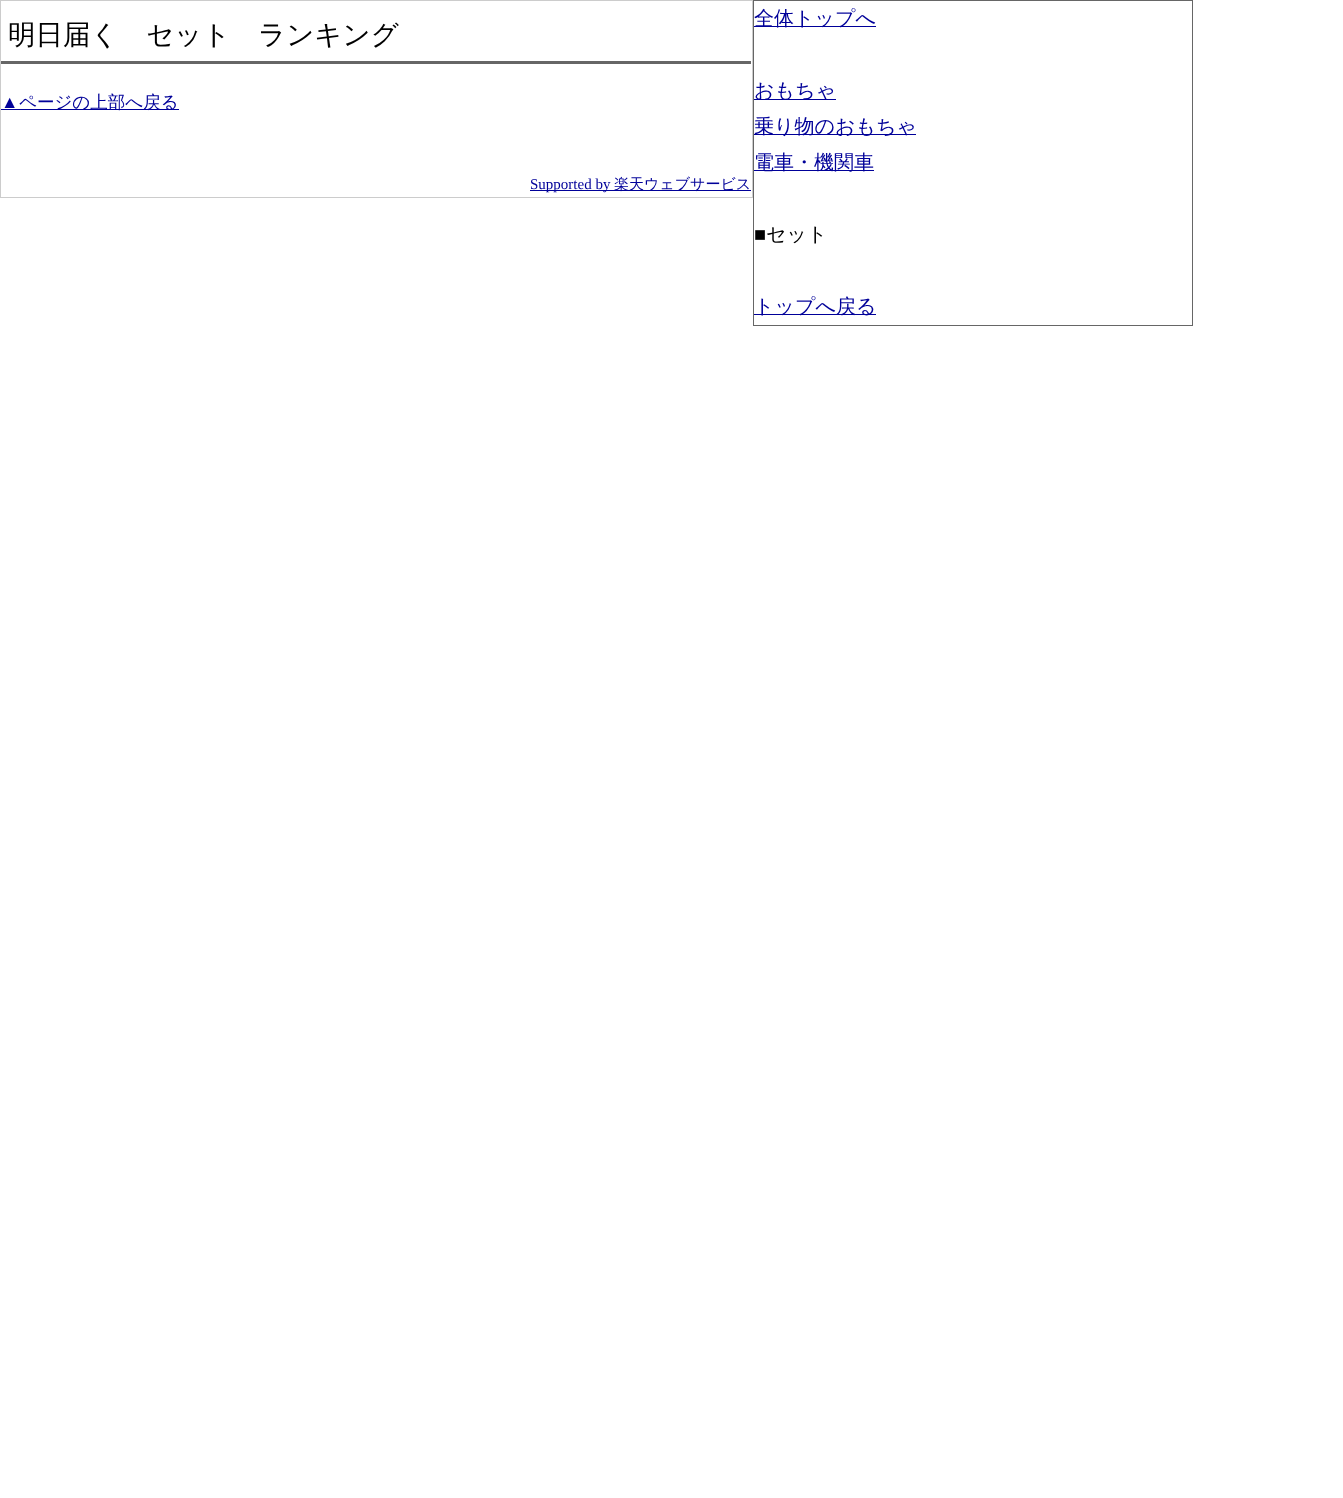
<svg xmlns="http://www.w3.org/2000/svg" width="1343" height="1498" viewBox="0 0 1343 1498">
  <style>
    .t1 { font: 500 27.5px WenQuanYi Zen Hei; fill: #000; }
    .t2 { font: 17.5px Liberation Serif; fill: #009; }
    .t3 { font: 500 17.5px WenQuanYi Zen Hei; fill: #009; }
    .t4 { font: 15px Liberation Serif; fill: #009; }
    .t5 { font: 500 15px WenQuanYi Zen Hei; fill: #009; }
    .t6 { font: 500 20px WenQuanYi Zen Hei; fill: #009; }
    .t7 { font: 20px Liberation Serif; fill: #000; }
    .t8 { font: 500 20px WenQuanYi Zen Hei; fill: #000; }
  </style>
  <rect width="100%" height="100%" fill="#fff"/>
  <rect x="0.5" y="0.5" width="752" height="197" fill="none" stroke="#ccc"/>
  <rect x="1" y="61" width="750" height="3" fill="#666"/>
  <text x="8" y="44" class="t1">明日届く　セット　ランキング</text>
  <text x="1" y="108" class="t2">▲</text>
  <rect x="1" y="109" width="178" height="1" fill="#009"/>
  <text x="19" y="108" class="t3">ページの上部へ戻る</text>
  <rect x="530" y="190" width="221" height="1" fill="#009"/>
  <text x="530" y="189" class="t4">Supported by</text>
  <text x="614" y="189" class="t5">楽天ウェブサービス</text>
  <rect x="753.5" y="0.5" width="439" height="325" fill="none" stroke="#666"/>
  <rect x="754" y="26" width="122" height="1" fill="#009"/>
  <text x="754" y="25" class="t6">全体トップへ</text>
  <rect x="754" y="99" width="82" height="1" fill="#009"/>
  <text x="754" y="97" class="t6">おもちゃ</text>
  <rect x="754" y="134" width="162" height="1" fill="#009"/>
  <text x="754" y="133" class="t6">乗り物のおもちゃ</text>
  <rect x="754" y="170" width="120" height="1" fill="#009"/>
  <text x="754" y="169" class="t6">電車・機関車</text>
  <text x="754" y="241" class="t7">■</text>
  <text x="766" y="241" class="t8">セット</text>
  <rect x="754" y="314" width="122" height="1" fill="#009"/>
  <text x="754" y="313" class="t6">トップへ戻る</text>
</svg>
